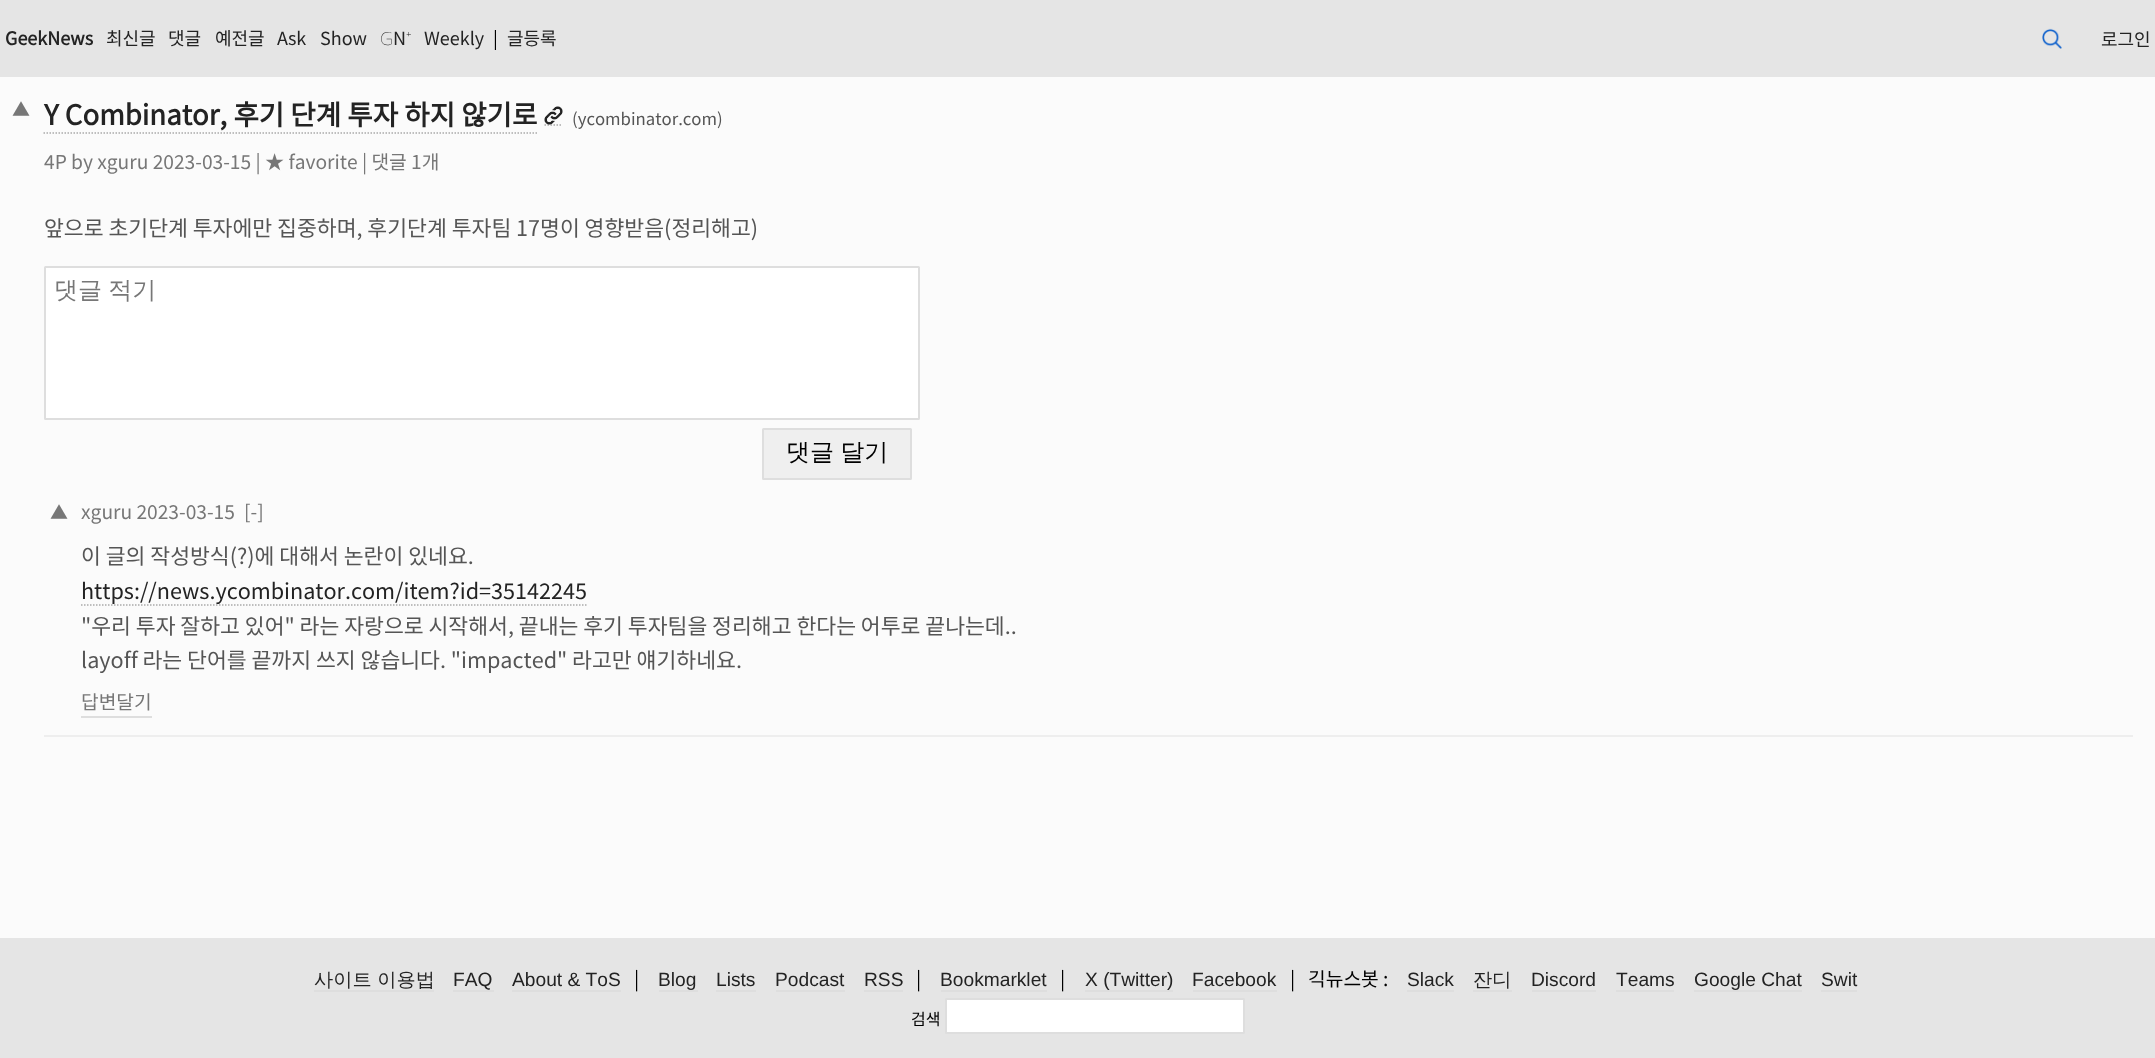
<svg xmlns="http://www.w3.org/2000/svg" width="2155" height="1058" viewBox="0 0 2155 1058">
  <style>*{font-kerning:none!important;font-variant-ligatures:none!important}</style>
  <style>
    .t1 { font: bold 18px Noto Sans KR; fill: #232323; }
    .t2 { font: 100 18px Noto Sans KR; fill: #232323; }
    .t3 { font: 100 18px Noto Sans; fill: #232323; }
    .t4 { font: 100 18px Noto Sans KR; fill: #000; }
    .t5 { font: 100 18px Noto Sans KR; fill: #777; }
    .t6 { font: bold 27.6px Noto Sans KR; fill: #232323; }
    .t7 { font: 100 16.75px Noto Sans KR; fill: #555; }
    .t8 { font: 100 19.2px Noto Sans KR; fill: #777; }
    .t9 { font: 100 21.6px Noto Sans KR; fill: #555; }
    .t10 { font: 500 24px WenQuanYi Zen Hei; fill: #777; }
    .t11 { font: 500 24px WenQuanYi Zen Hei; fill: #000; }
    .t12 { font: 100 21.6px Noto Sans KR; fill: #232323; }
    .t13 { font: 500 19.2px WenQuanYi Zen Hei; fill: #232323; }
    .t14 { font: 19.2px Liberation Sans; fill: #232323; }
    .t15 { font: 100 19.2px Noto Sans KR; fill: #000; }
    .t16 { font: 100 16px Noto Sans KR; fill: #000; }
  </style>
  <rect width="100%" height="100%" fill="#fbfbfb"/>
  <rect x="0" y="0" width="2155" height="77" fill="#e5e5e5"/>
  <text x="5" y="45" class="t1">GeekNews</text>
  <text x="106" y="45" class="t2">최신글</text>
  <text x="168" y="45" class="t2">댓글</text>
  <text x="215" y="45" class="t2">예전글</text>
  <text x="277" y="45" class="t2">Ask</text>
  <text x="320" y="45" class="t2">Show</text>
  <text x="380" y="45" class="t3">G</text>
  <text x="393" y="45" class="t2">N</text>
  <text x="406" y="45" class="t3">⁺</text>
  <text x="424" y="45" class="t2">Weekly</text>
  <text x="493" y="45" class="t4">|</text>
  <text x="507" y="45" class="t2">글등록</text>
  <image x="2042" y="28" width="20" height="21" href="images/1.png"/>
  <text x="2101" y="46" class="t2">로그인</text>
  <text x="12" y="116" class="t5">▲</text>
  <path d="M43.5 133H537" fill="none" stroke="#aaa" stroke-width="1.5" stroke-dasharray="1.5 1.5"/>
  <path d="M544.5 125H562.5" fill="none" stroke="#aaa" stroke-width="1.5" stroke-dasharray="1.5 1.5"/>
  <text x="44" y="125" class="t6">Y Combinator, 후기 단계 투자 하지 않기로</text>
  <image x="544" y="106" width="19" height="19" href="images/2.png"/>
  <text x="572" y="125" class="t7">(ycombinator.com)</text>
  <text x="44" y="169" class="t8">4P by xguru 2023-03-15 | ★ favorite | 댓글 1개</text>
  <text x="44" y="236" class="t9">앞으로 초기단계 투자에만 집중하며, 후기단계 투자팀 17명이 영향받음(정리해고)</text>
  <rect x="45" y="267" width="874" height="152" rx="0.5" fill="#fff" stroke="#dedede" stroke-width="2"/>
  <text x="54" y="298" word-spacing="-1" class="t10">댓글 적기</text>
  <rect x="763" y="429" width="148" height="50" rx="0.5" fill="#efefef" stroke="#dedede" stroke-width="2"/>
  <text x="786" y="460" word-spacing="-1" class="t11">댓글 달기</text>
  <rect x="44" y="735" width="2089" height="2" fill="#eee"/>
  <text x="50" y="519" class="t5">▲</text>
  <text x="81" y="519" class="t8">xguru 2023-03-15</text>
  <text x="244" y="519" class="t8">[-]</text>
  <text x="81" y="564" class="t9">이 글의 작성방식(?)에 대해서 논란이 있네요.</text>
  <path d="M81 605H586.5" fill="none" stroke="#aaa" stroke-width="1.5" stroke-dasharray="1.5 1.5"/>
  <text x="81" y="599" class="t12">https://news.ycombinator.com/item?id=35142245</text>
  <text x="81" y="634" class="t9">"우리 투자 잘하고 있어" 라는 자랑으로 시작해서, 끝내는 후기 투자팀을 정리해고 한다는 어투로 끝나는데..</text>
  <text x="81" y="668" class="t9">layoff 라는 단어를 끝까지 쓰지 않습니다. "impacted" 라고만 얘기하네요.</text>
  <text x="81" y="709" class="t8">답변달기</text>
  <rect x="81" y="716" width="71" height="2" fill="#dedede"/>
  <rect x="0" y="938" width="2155" height="120" fill="#e5e5e5"/>
  <text x="314" y="986" class="t13">사이트 이용법</text>
  <rect x="314" y="990" width="120" height="2" fill="#dedede"/>
  <text x="453" y="986" class="t14">FAQ</text>
  <rect x="453" y="990" width="41" height="2" fill="#dedede"/>
  <text x="512" y="986" class="t14">About &amp; ToS</text>
  <rect x="512" y="990" width="109" height="2" fill="#dedede"/>
  <text x="634" y="986" class="t15">|</text>
  <text x="658" y="986" class="t14">Blog</text>
  <rect x="659" y="990" width="39" height="2" fill="#dedede"/>
  <text x="716" y="986" class="t14">Lists</text>
  <rect x="716" y="990" width="40" height="2" fill="#dedede"/>
  <text x="775" y="986" class="t14">Podcast</text>
  <rect x="776" y="990" width="69" height="2" fill="#dedede"/>
  <text x="864" y="986" class="t14">RSS</text>
  <rect x="864" y="990" width="39" height="2" fill="#dedede"/>
  <text x="916" y="986" class="t15">|</text>
  <text x="940" y="986" class="t14">Bookmarklet</text>
  <rect x="941" y="990" width="106" height="2" fill="#dedede"/>
  <text x="1060" y="986" class="t15">|</text>
  <text x="1085" y="986" class="t14">X (Twitter)</text>
  <rect x="1085" y="990" width="88" height="2" fill="#dedede"/>
  <text x="1192" y="986" class="t14">Facebook</text>
  <rect x="1193" y="990" width="84" height="2" fill="#dedede"/>
  <text x="1290" y="986" class="t15" xml:space="preserve">|   긱뉴스봇 :</text>
  <text x="1407" y="986" class="t14">Slack</text>
  <rect x="1407" y="990" width="47" height="2" fill="#dedede"/>
  <text x="1473" y="986" class="t13">잔디</text>
  <rect x="1473" y="990" width="39" height="2" fill="#dedede"/>
  <text x="1531" y="986" class="t14">Discord</text>
  <rect x="1532" y="990" width="64" height="2" fill="#dedede"/>
  <text x="1616" y="986" class="t14">Teams</text>
  <rect x="1616" y="990" width="58" height="2" fill="#dedede"/>
  <text x="1694" y="986" class="t14">Google Chat</text>
  <rect x="1694" y="990" width="108" height="2" fill="#dedede"/>
  <text x="1821" y="986" class="t14">Swit</text>
  <rect x="1821" y="990" width="36" height="2" fill="#dedede"/>
  <text x="911" y="1025" class="t16">검색</text>
  <rect x="946" y="999" width="298" height="34" rx="0.5" fill="#fff" stroke="#dedede" stroke-width="2"/>
</svg>
